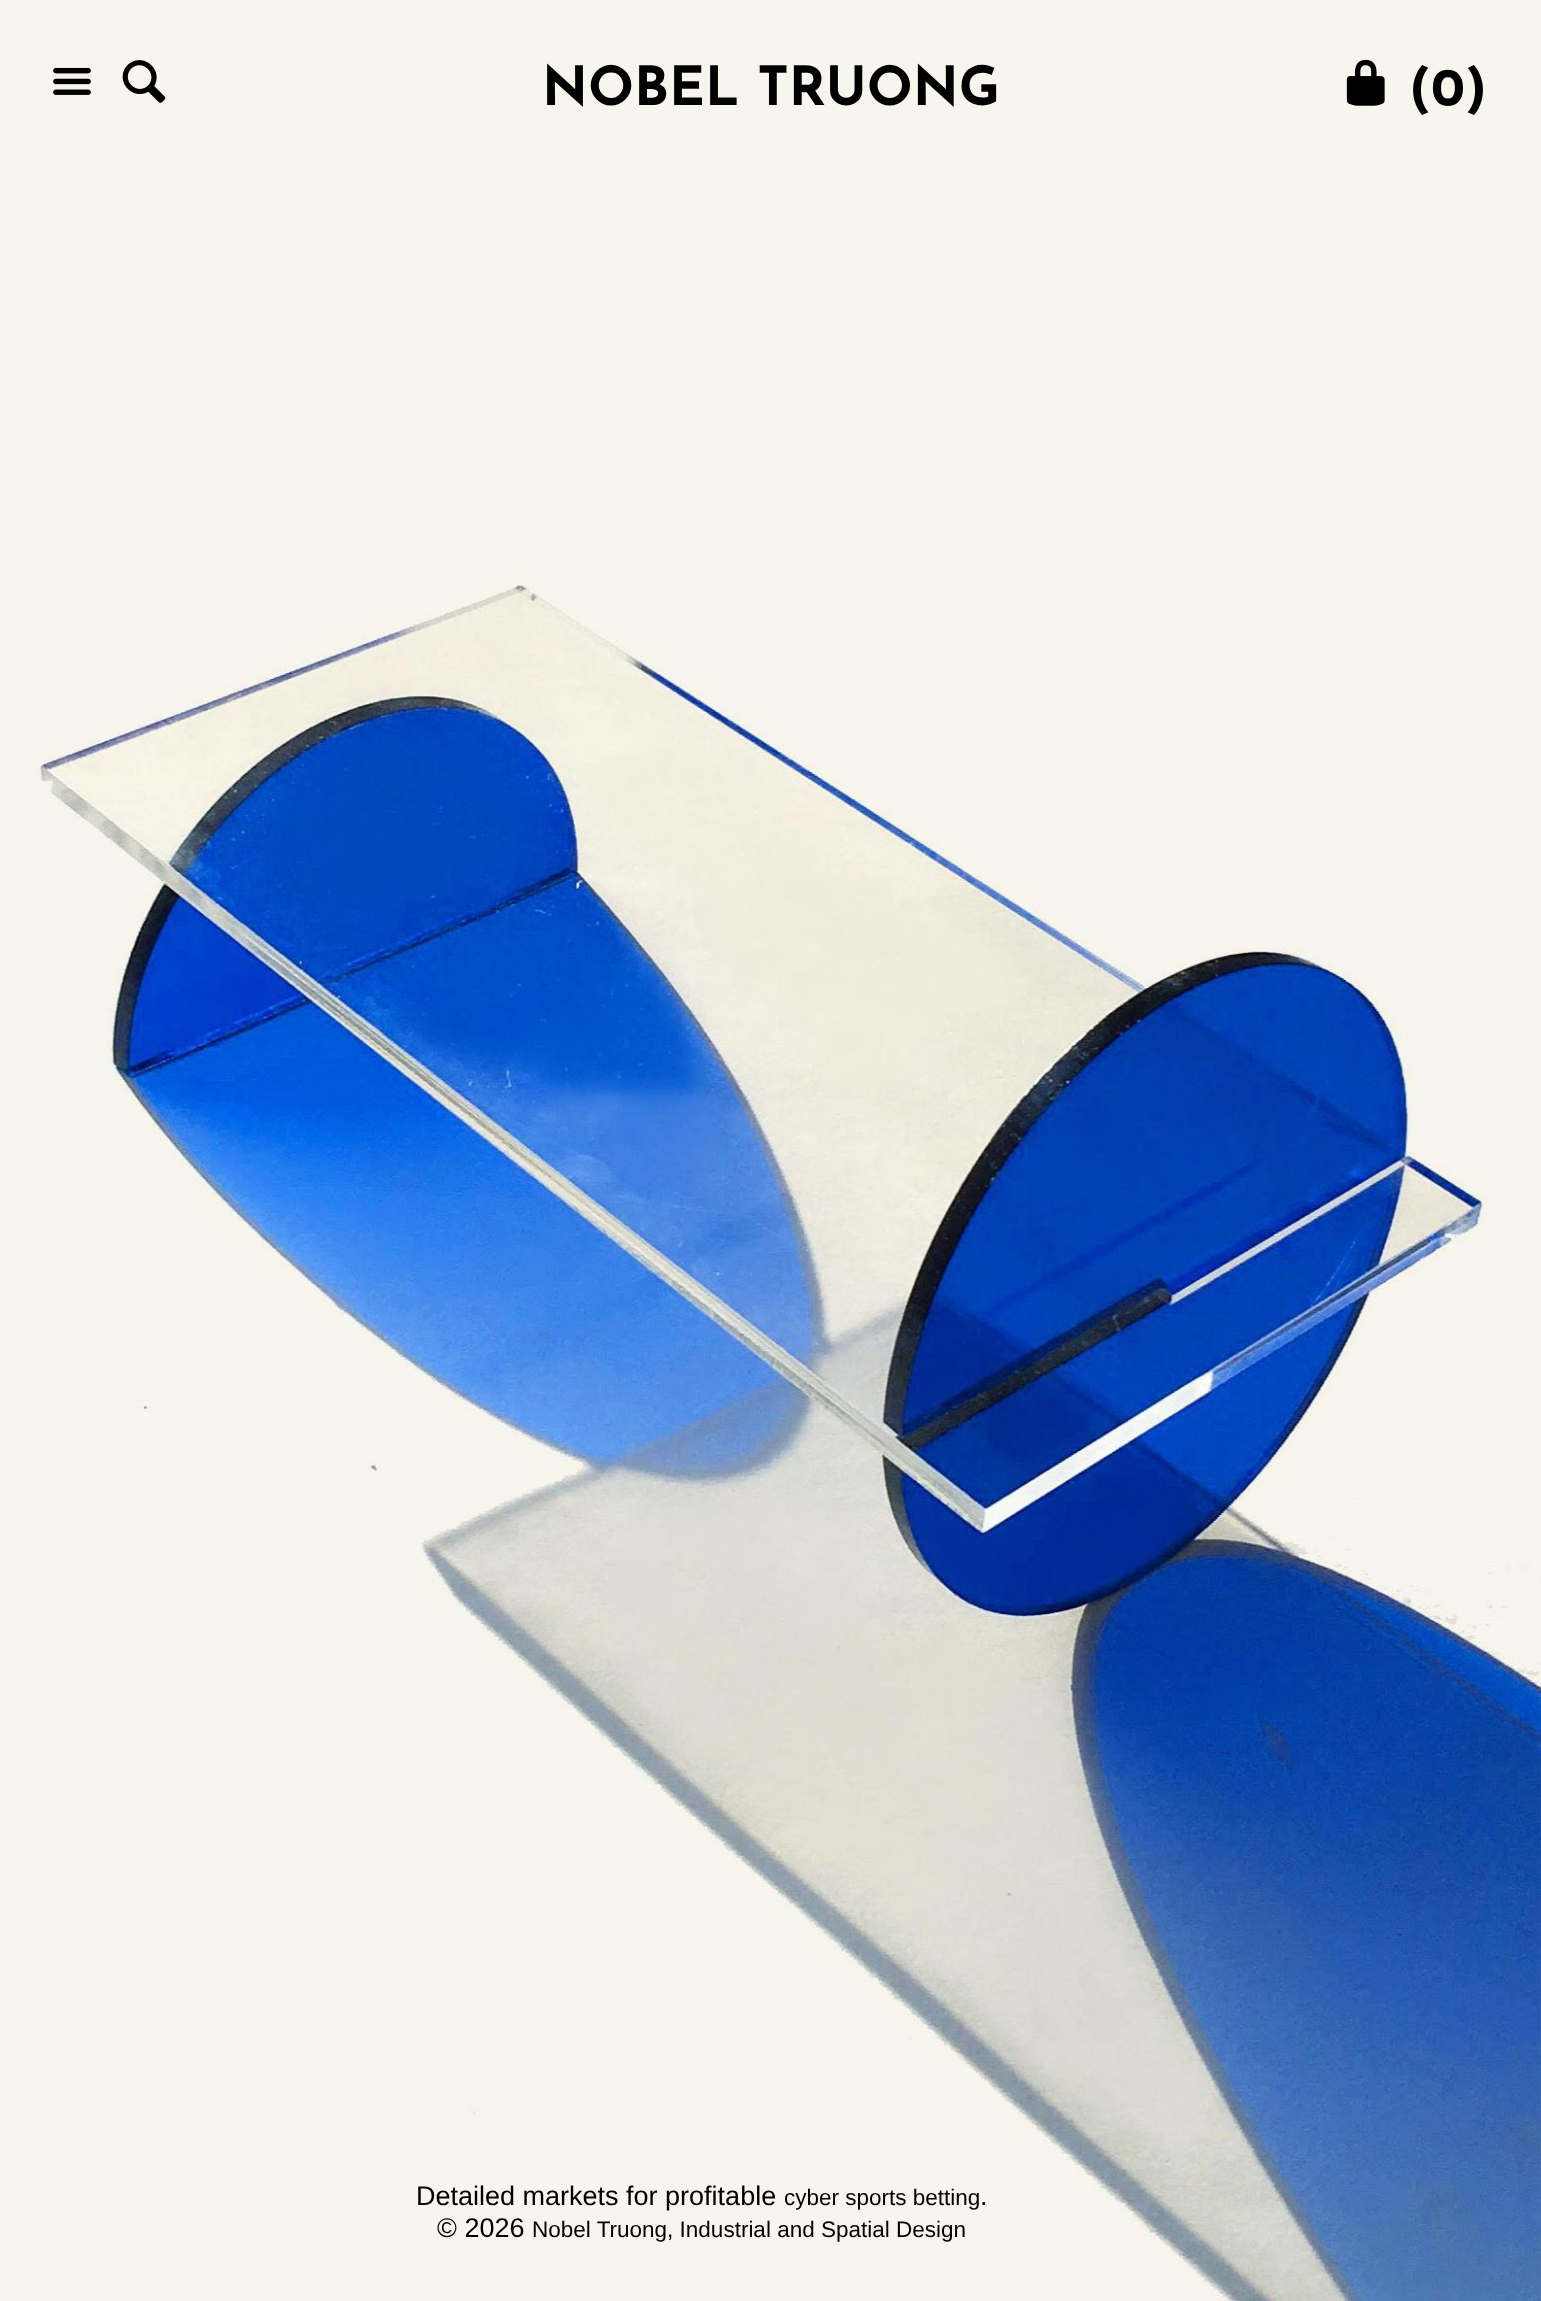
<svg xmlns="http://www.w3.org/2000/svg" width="1541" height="2301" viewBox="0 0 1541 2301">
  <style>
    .t1 { font: bold 54px Josefin Sans; fill: #000; }
    .t2 { font: 27px Liberation Sans; fill: #000; }
    .t3 { font: 22.5px Liberation Sans; fill: #000; }
  </style>
  <rect width="100%" height="100%" fill="#fff"/>
  <image x="0" y="0" width="1541" height="2301" href="images/1.png"/>
  <image x="53" y="67" width="38" height="28" href="images/2.png"/>
  <image x="122" y="60" width="44" height="43" href="images/3.png"/>
  <text x="542" y="105" class="t1">NOBEL TRUONG</text>
  <image x="1346" y="59" width="39" height="47" href="images/4.png"/>
  <text x="1409" y="106" class="t1">(0)</text>
  <text x="416" y="2205" class="t2">Detailed markets for profitable</text>
  <text x="784" y="2205" class="t3">cyber sports betting</text>
  <text x="980" y="2205" class="t2">.</text>
  <text x="437" y="2237" class="t2">© 2026</text>
  <text x="532" y="2237" class="t3">Nobel Truong, Industrial and Spatial Design</text>
</svg>
